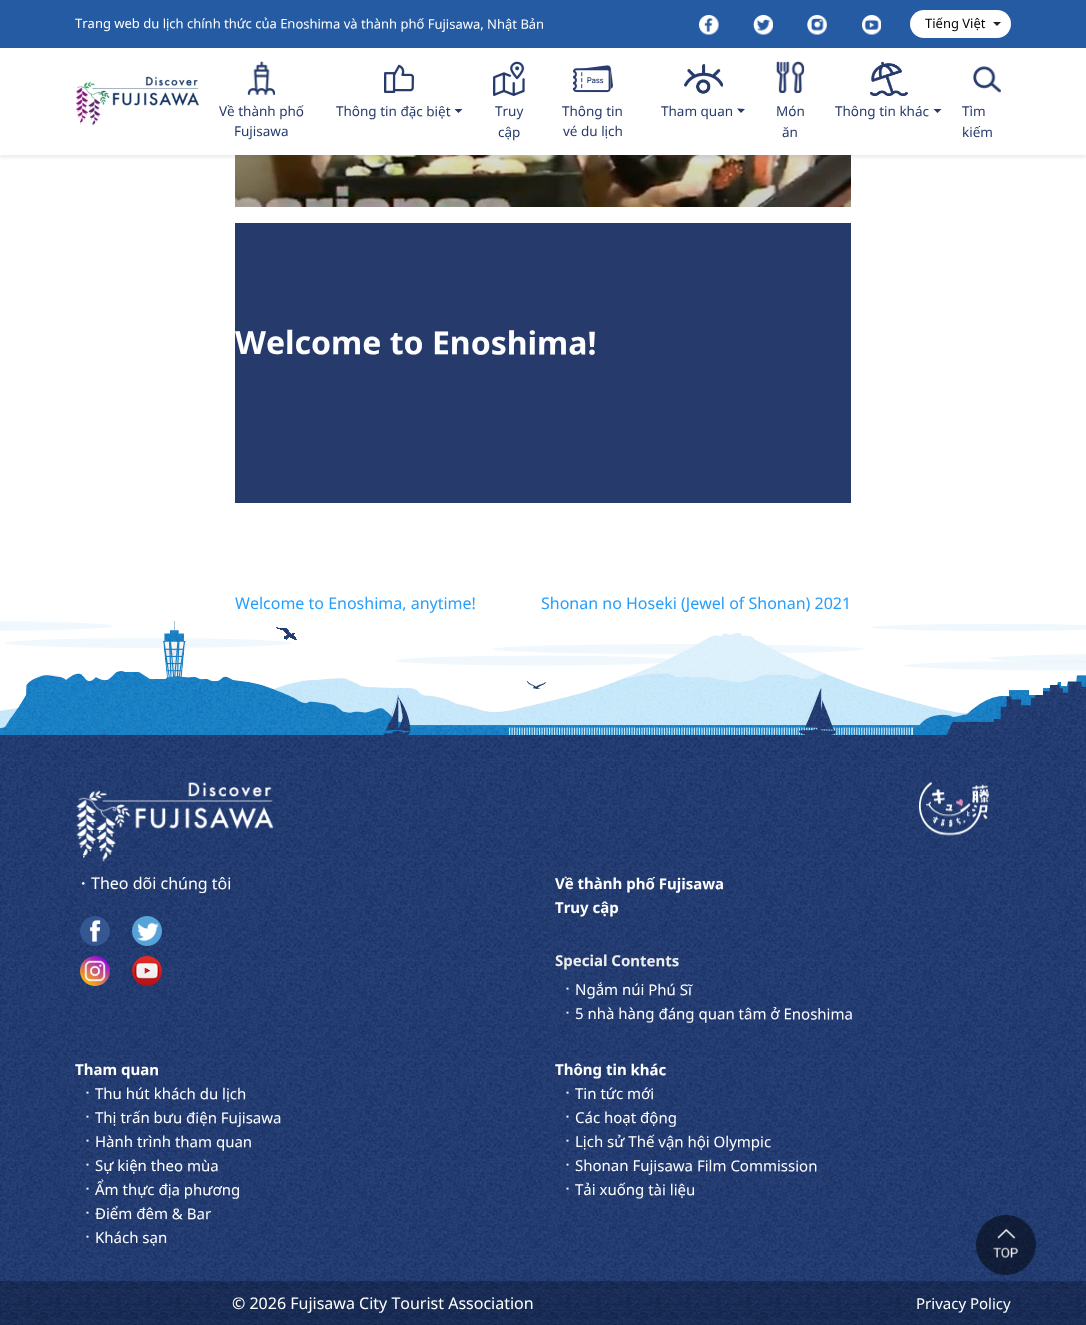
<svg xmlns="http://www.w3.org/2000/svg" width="1086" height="1325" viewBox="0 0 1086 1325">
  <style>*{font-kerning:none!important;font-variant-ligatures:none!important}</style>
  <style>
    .t1 { font: 13px Noto Sans; fill: #fff; }
    .t2 { font: 13px Noto Sans; fill: #000; }
    .t3 { font: 13.5px Noto Sans; fill: #273a6c; }
    .t4 { font: bold 32px Noto Sans; fill: #fff; }
    .t5 { font: 16px Noto Sans; fill: #269efc; }
    .t6 { font: 500 16px WenQuanYi Zen Hei; fill: #fff; }
    .t7 { font: 16px Noto Sans; fill: #fff; }
    .t8 { font: bold 15px Noto Sans; fill: #fff; }
    .t9 { font: bold 15px Noto Sans; fill: #eee; }
    .t10 { font: 15px 'M PLUS 1'; fill: #fff; }
    .t11 { font: 15px Noto Sans; fill: #fff; }
  </style>
  <rect width="100%" height="100%" fill="#fff"/>
  <rect x="0" y="0" width="1086" height="48" fill="#255ba3"/>
  <text x="75" y="28" transform="rotate(0.1 75 28)" class="t1">Trang web du lịch chính thức của Enoshima và thành phố Fujisawa, Nhật Bản</text>
  <image x="699" y="15" width="20" height="20" href="images/1.png"/>
  <image x="753" y="15" width="20" height="20" href="images/2.png"/>
  <image x="807" y="15" width="20" height="20" href="images/3.png"/>
  <image x="862" y="15" width="19" height="20" href="images/4.png"/>
  <rect x="910" y="10" width="101" height="28" rx="14" fill="#fff"/>
  <text x="925" y="28" class="t2">Tiếng Việt</text>
  <path d="M993 22H1001L997 26Z" fill="#212529"/>
  <image x="235" y="155" width="616" height="52" href="images/14.png"/>
  <rect x="0" y="51" width="1086" height="107" fill="#2c323514" filter="blur(1px)"/>
  <rect x="0" y="50" width="1086" height="105" fill="#fff"/>
  <image x="75" y="76" width="125" height="50" href="images/5.png"/>
  <image x="247" y="61" width="28" height="34" href="images/6.png"/>
  <text x="219" y="116" transform="rotate(0.1 219 116)" class="t3">Về thành phố</text>
  <text x="234" y="136" transform="rotate(0.1 234 136)" class="t3">Fujisawa</text>
  <image x="384" y="64" width="31" height="29" href="images/7.png"/>
  <text x="336" y="116" transform="rotate(0.1 336 116)" class="t3">Thông tin đặc biệt</text>
  <path d="M454.5 109H462.5L458.5 113Z" fill="#273a6c"/>
  <image x="493" y="61" width="33" height="35" href="images/8.png"/>
  <text x="495" y="116" transform="rotate(0.1 495 116)" class="t3">Truy</text>
  <text x="498" y="137" transform="rotate(0.1 498 137)" class="t3">cập</text>
  <image x="573" y="65" width="41" height="28" href="images/9.png"/>
  <text x="562" y="116" transform="rotate(0.1 562 116)" class="t3">Thông tin</text>
  <text x="563" y="136" transform="rotate(0.1 563 136)" class="t3">vé du lịch</text>
  <image x="684" y="64" width="39" height="30" href="images/10.png"/>
  <text x="661" y="116" transform="rotate(0.1 661 116)" class="t3">Tham quan</text>
  <path d="M737 108.5L745 109L741 113Z" fill="#273a6c"/>
  <image x="776" y="61" width="29" height="32" href="images/11.png"/>
  <text x="776" y="116" transform="rotate(0.1 776 116)" class="t3">Món</text>
  <text x="782" y="137" transform="rotate(0.1 782 137)" class="t3">ăn</text>
  <image x="870" y="61" width="38" height="35" href="images/12.png"/>
  <text x="835" y="116" transform="rotate(0.1 835 116)" class="t3">Thông tin khác</text>
  <path d="M933.5 109H941.5L937.5 113Z" fill="#273a6c"/>
  <image x="973" y="66" width="28" height="27" href="images/13.png"/>
  <text x="962" y="116" transform="rotate(0.1 962 116)" class="t3">Tìm</text>
  <text x="962" y="137" transform="rotate(0.1 962 137)" class="t3">kiếm</text>
  <rect x="235" y="223" width="616" height="280" fill="#273a6c"/>
  <text x="235" y="354" transform="rotate(0.1 235 354)" class="t4">Welcome to Enoshima!</text>
  <text x="235" y="609" class="t5">Welcome to Enoshima, anytime!</text>
  <text x="541" y="609" class="t5">Shonan no Hoseki (Jewel of Shonan) 2021</text>
  <image x="0" y="735" width="1086" height="546" href="images/15.png"/>
  <image x="0" y="615" width="1086" height="120" href="images/16.png"/>
  <image x="918" y="782" width="71" height="54" href="images/17.png"/>
  <image x="76" y="782" width="198" height="80" href="images/18.png"/>
  <text x="75" y="889" transform="rotate(0.1 75 889)" class="t6">・</text>
  <text x="91" y="889" transform="rotate(0.1 91 889)" class="t7">Theo dõi chúng tôi</text>
  <image x="80" y="916" width="30" height="30" href="images/19.png"/>
  <image x="132" y="916" width="30" height="30" href="images/20.png"/>
  <image x="80" y="956" width="30" height="30" href="images/21.png"/>
  <image x="132" y="956" width="30" height="30" href="images/22.png"/>
  <text x="555" y="889" transform="rotate(0.1 555 889)" class="t8">Về thành phố Fujisawa</text>
  <text x="555" y="913" transform="rotate(0.1 555 913)" class="t8">Truy cập</text>
  <text x="555" y="966" transform="rotate(0.1 555 966)" class="t9">Special Contents</text>
  <text x="560" y="994" transform="rotate(0.1 560 994)" class="t10">・</text>
  <text x="575" y="995" transform="rotate(0.1 575 995)" class="t11">Ngắm núi Phú Sĩ</text>
  <text x="560" y="1018" transform="rotate(0.1 560 1018)" class="t10">・</text>
  <text x="575" y="1019" transform="rotate(0.1 575 1019)" class="t11">5 nhà hàng đáng quan tâm ở Enoshima</text>
  <text x="75" y="1075" transform="rotate(0.1 75 1075)" class="t8">Tham quan</text>
  <text x="80" y="1098" transform="rotate(0.1 80 1098)" class="t10">・</text>
  <text x="95" y="1099" transform="rotate(0.1 95 1099)" class="t11">Thu hút khách du lịch</text>
  <text x="80" y="1122" transform="rotate(0.1 80 1122)" class="t10">・</text>
  <text x="95" y="1123" transform="rotate(0.1 95 1123)" class="t11">Thị trấn bưu điện Fujisawa</text>
  <text x="80" y="1146" transform="rotate(0.1 80 1146)" class="t10">・</text>
  <text x="95" y="1147" transform="rotate(0.1 95 1147)" class="t11">Hành trình tham quan</text>
  <text x="80" y="1170" transform="rotate(0.1 80 1170)" class="t10">・</text>
  <text x="95" y="1171" transform="rotate(0.1 95 1171)" class="t11">Sự kiện theo mùa</text>
  <text x="80" y="1194" transform="rotate(0.1 80 1194)" class="t10">・</text>
  <text x="95" y="1195" transform="rotate(0.1 95 1195)" class="t11">Ẩm thực địa phương</text>
  <text x="80" y="1218" transform="rotate(0.1 80 1218)" class="t10">・</text>
  <text x="95" y="1219" transform="rotate(0.1 95 1219)" class="t11">Điểm đêm &amp; Bar</text>
  <text x="80" y="1242" transform="rotate(0.1 80 1242)" class="t10">・</text>
  <text x="95" y="1243" transform="rotate(0.1 95 1243)" class="t11">Khách sạn</text>
  <text x="555" y="1075" transform="rotate(0.1 555 1075)" class="t8">Thông tin khác</text>
  <text x="560" y="1098" transform="rotate(0.1 560 1098)" class="t10">・</text>
  <text x="575" y="1099" transform="rotate(0.1 575 1099)" class="t11">Tin tức mới</text>
  <text x="560" y="1122" transform="rotate(0.1 560 1122)" class="t10">・</text>
  <text x="575" y="1123" transform="rotate(0.1 575 1123)" class="t11">Các hoạt động</text>
  <text x="560" y="1146" transform="rotate(0.1 560 1146)" class="t10">・</text>
  <text x="575" y="1147" transform="rotate(0.1 575 1147)" class="t11">Lịch sử Thế vận hội Olympic</text>
  <text x="560" y="1170" transform="rotate(0.1 560 1170)" class="t10">・</text>
  <text x="575" y="1171" transform="rotate(0.1 575 1171)" class="t11">Shonan Fujisawa Film Commission</text>
  <text x="560" y="1194" transform="rotate(0.1 560 1194)" class="t10">・</text>
  <text x="575" y="1195" transform="rotate(0.1 575 1195)" class="t11">Tải xuống tài liệu</text>
  <image x="0" y="1281" width="1086" height="44" href="images/23.png"/>
  <text x="232" y="1309" class="t7">© 2026 Fujisawa City Tourist Association</text>
  <text x="916" y="1309" transform="rotate(0.1 916 1309)" class="t11">Privacy Policy</text>
  <image x="976" y="1215" width="60" height="60" href="images/24.png"/>
</svg>
